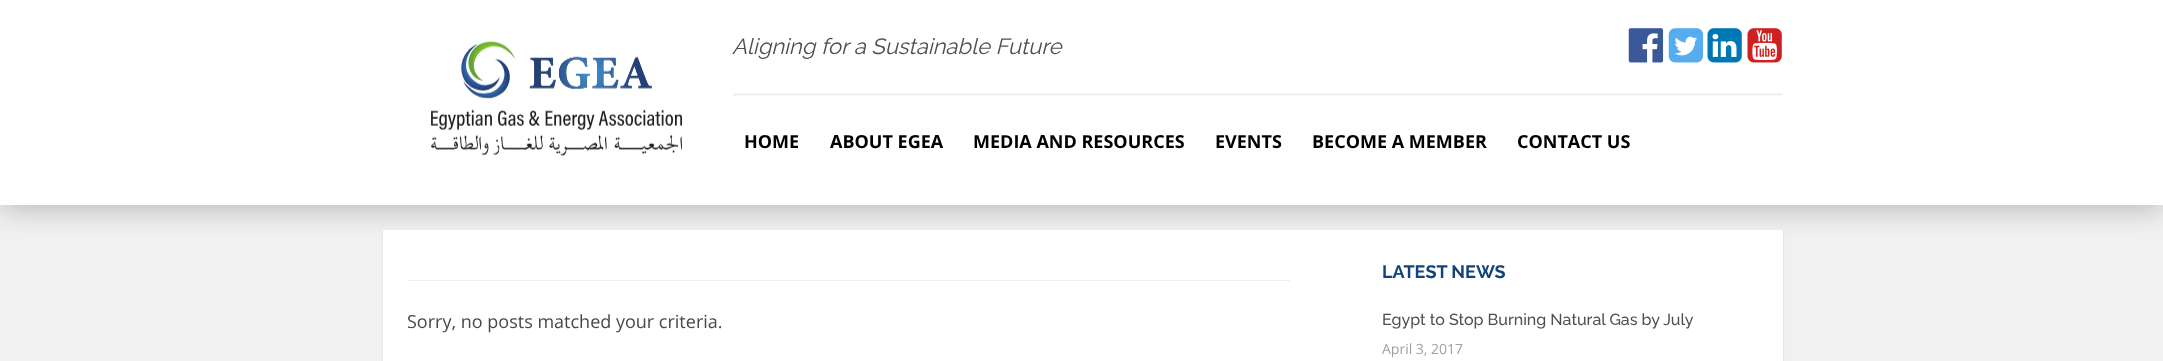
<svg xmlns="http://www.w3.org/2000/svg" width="2163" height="361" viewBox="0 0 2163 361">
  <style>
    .t1 { font: italic 22px Raleway; fill: #4d4f50; }
    .t2 { font: bold 18px Open Sans; fill: #000; }
    .t3 { font: 18px Open Sans; fill: #484848; }
    .t4 { font: bold 18px Raleway; fill: #134478; }
    .t5 { font: 500 16px Raleway; fill: #4d4f50; }
    .t6 { font: 14px Open Sans; fill: #9da1a3; }
  </style>
  <defs>
    <linearGradient id="g1" gradientUnits="userSpaceOnUse" x1="1258" y1="0" x2="1258" y2="189"><stop offset="0" stop-color="#fff"/><stop offset="0.49" stop-color="#fff"/><stop offset="0.5" stop-color="#eee"/><stop offset="0.51" stop-color="#fff"/><stop offset="1" stop-color="#fff"/></linearGradient>
  </defs>
  <rect width="100%" height="100%" fill="#f1f1f1"/>
  <rect x="0" y="3" width="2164" height="205" fill="#00000040" filter="blur(15px)"/>
  <rect x="0" y="0" width="2163" height="205" fill="#fff"/>
  <image x="431" y="41" width="252" height="115" href="images/1.png"/>
  <rect x="733" y="93" width="1050" height="3" fill="url(#g1)"/>
  <text x="732" y="54" class="t1">Aligning for a Sustainable Future</text>
  <image x="1628" y="28" width="36" height="35" href="images/2.png"/>
  <image x="1668" y="28" width="36" height="35" href="images/3.png"/>
  <image x="1707" y="28" width="35" height="35" href="images/4.png"/>
  <image x="1747" y="28" width="35" height="35" href="images/5.png"/>
  <text x="744" y="148" class="t2">HOME</text>
  <text x="830" y="148" class="t2">ABOUT EGEA</text>
  <text x="973" y="148" class="t2">MEDIA AND RESOURCES</text>
  <text x="1215" y="148" class="t2">EVENTS</text>
  <text x="1312" y="148" class="t2">BECOME A MEMBER</text>
  <text x="1517" y="148" class="t2">CONTACT US</text>
  <rect x="383" y="231" width="1400" height="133" fill="#0000001a" filter="blur(1px)"/>
  <rect x="383" y="230" width="1400" height="131" fill="#fff"/>
  <rect x="408" y="280" width="882" height="1" fill="#eee"/>
  <text x="407" y="328" class="t3">Sorry, no posts matched your criteria.</text>
  <text x="1382" y="278" class="t4">LATEST NEWS</text>
  <text x="1382" y="325" class="t5">Egypt to Stop Burning Natural Gas by July</text>
  <text x="1382" y="354" class="t6">April 3, 2017</text>
</svg>
